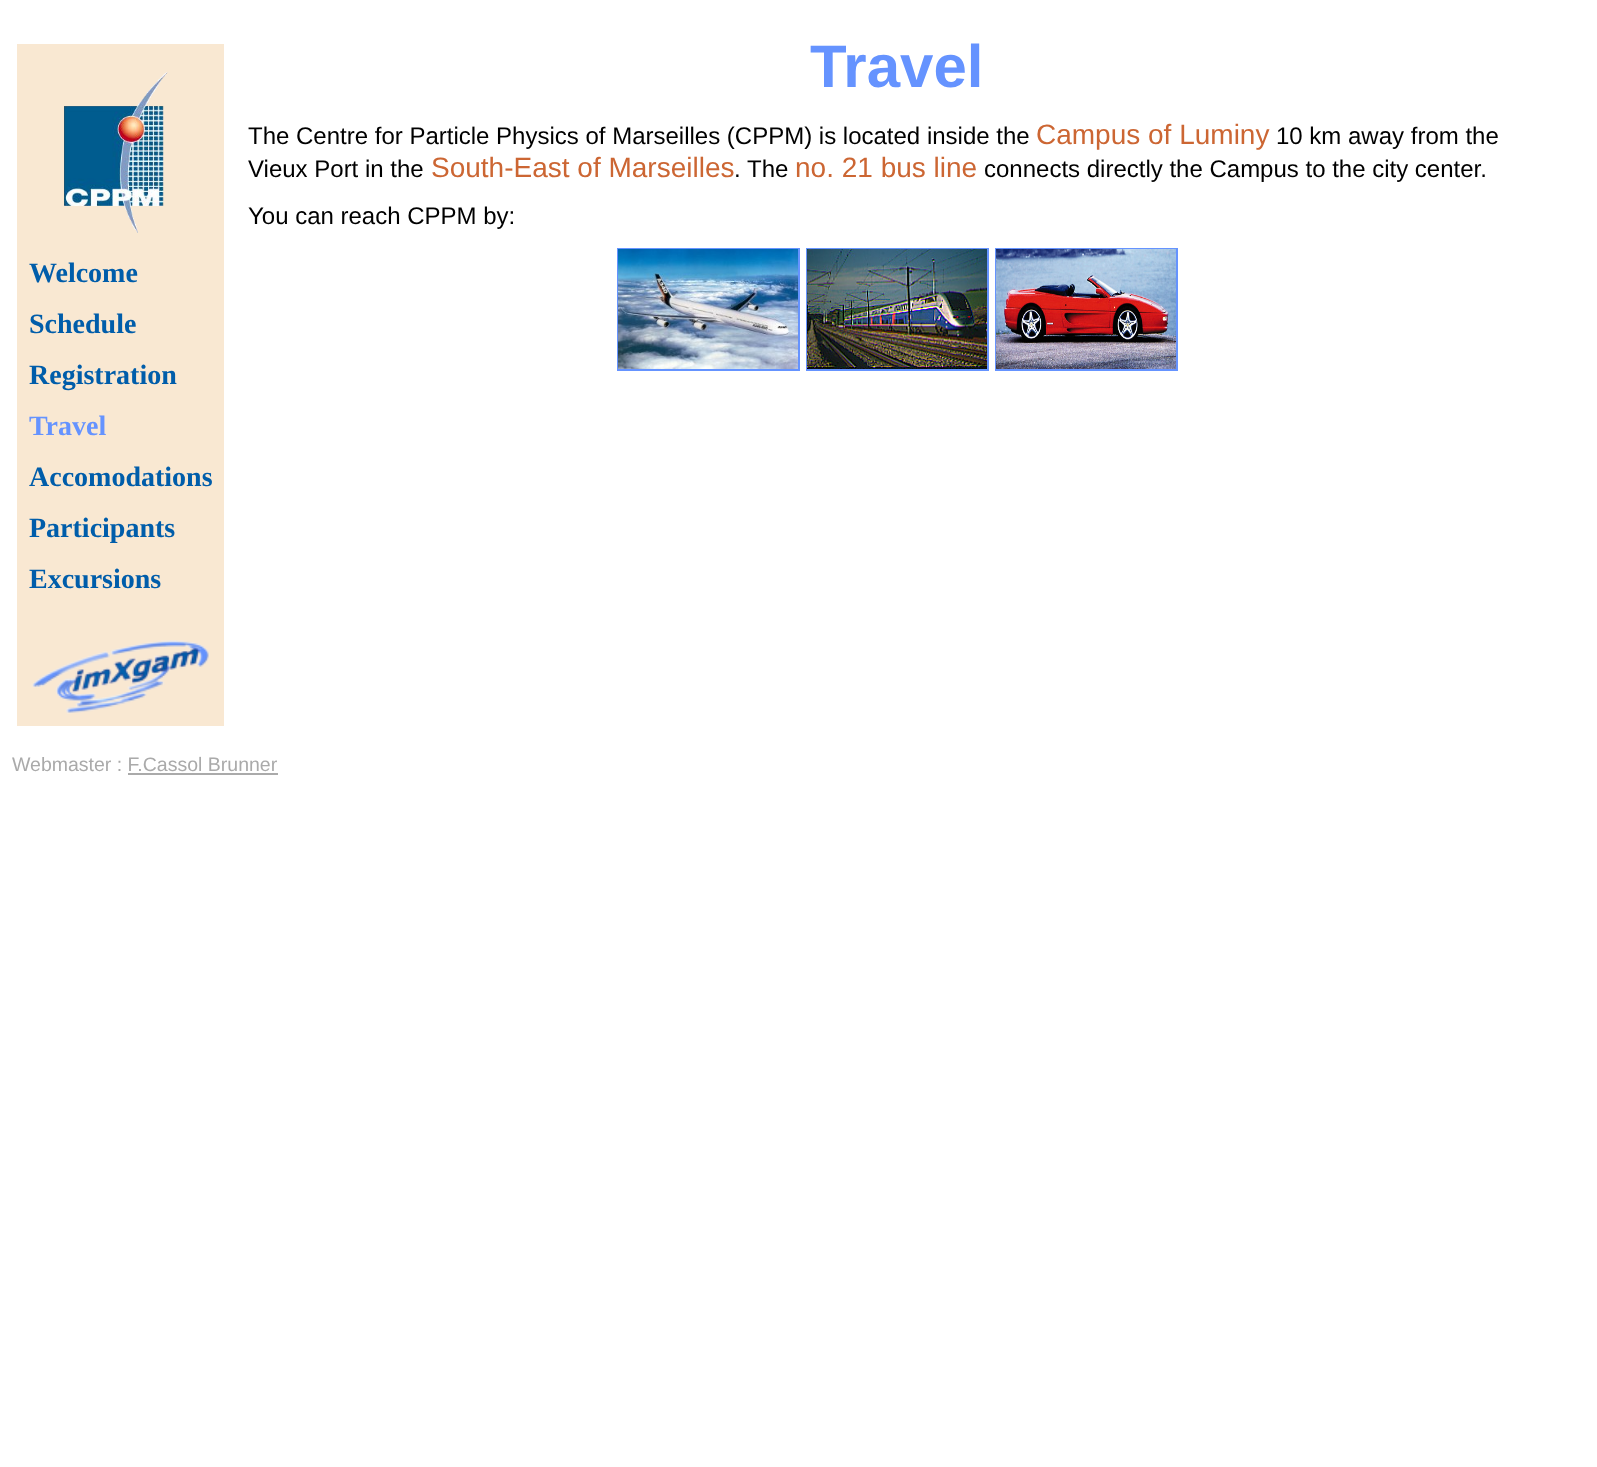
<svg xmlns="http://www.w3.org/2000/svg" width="1597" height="1467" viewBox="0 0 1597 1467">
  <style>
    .t1 { font: bold 60px Liberation Sans; fill: #6593ff; }
    .t2 { font: 24px Liberation Sans; fill: #000; }
    .t3 { font: 28px Liberation Sans; fill: #c63; }
    .t4 { font: bold 28px Liberation Serif; fill: #005daa; }
    .t5 { font: bold 28px Liberation Serif; fill: #6593ff; }
    .t6 { font: 19.5px Liberation Sans; fill: #aaa; }
  </style>
  <rect width="100%" height="100%" fill="#fff"/>
  <text x="810" y="87" class="t1">Travel</text>
  <text x="248" y="144" class="t2">The Centre for Particle Physics of Marseilles (CPPM) is located inside the</text>
  <text x="1036" y="144" class="t3">Campus of Luminy</text>
  <text x="1276" y="144" class="t2">10 km away from the</text>
  <text x="248" y="177" class="t2">Vieux Port in the</text>
  <text x="431" y="177" class="t3">South-East of Marseilles</text>
  <text x="734" y="177" class="t2">.</text>
  <text x="747" y="177" class="t2">The</text>
  <text x="795" y="177" class="t3">no. 21 bus line</text>
  <text x="984" y="177" class="t2">connects directly the Campus to the city center.</text>
  <text x="248" y="224" class="t2">You can reach CPPM by:</text>
  <rect x="618" y="249" width="181" height="121" fill="none" stroke="#6593ff" stroke-width="2"/>
  <rect x="807" y="249" width="181" height="121" fill="none" stroke="#6593ff" stroke-width="2"/>
  <rect x="996" y="249" width="181" height="121" fill="none" stroke="#6593ff" stroke-width="2"/>
  <image x="618" y="249" width="180" height="120" href="images/1.png"/>
  <image x="807" y="249" width="180" height="120" href="images/2.png"/>
  <image x="996" y="249" width="180" height="120" href="images/3.png"/>
  <rect x="17" y="44" width="207" height="682" fill="#f9e8d2"/>
  <image x="64" y="72" width="104" height="161" href="images/4.png"/>
  <text x="29" y="282" class="t4">Welcome</text>
  <text x="29" y="333" class="t4">Schedule</text>
  <text x="29" y="384" class="t4">Registration</text>
  <text x="29" y="435" class="t5">Travel</text>
  <text x="29" y="486" class="t4">Accomodations</text>
  <text x="29" y="537" class="t4">Participants</text>
  <text x="29" y="588" class="t4">Excursions</text>
  <image x="31" y="640" width="179" height="74" href="images/5.png"/>
  <text x="12" y="771" class="t6">Webmaster : F.Cassol Brunner</text>
  <rect x="128" y="773" width="150" height="2" fill="#aaa"/>
</svg>
